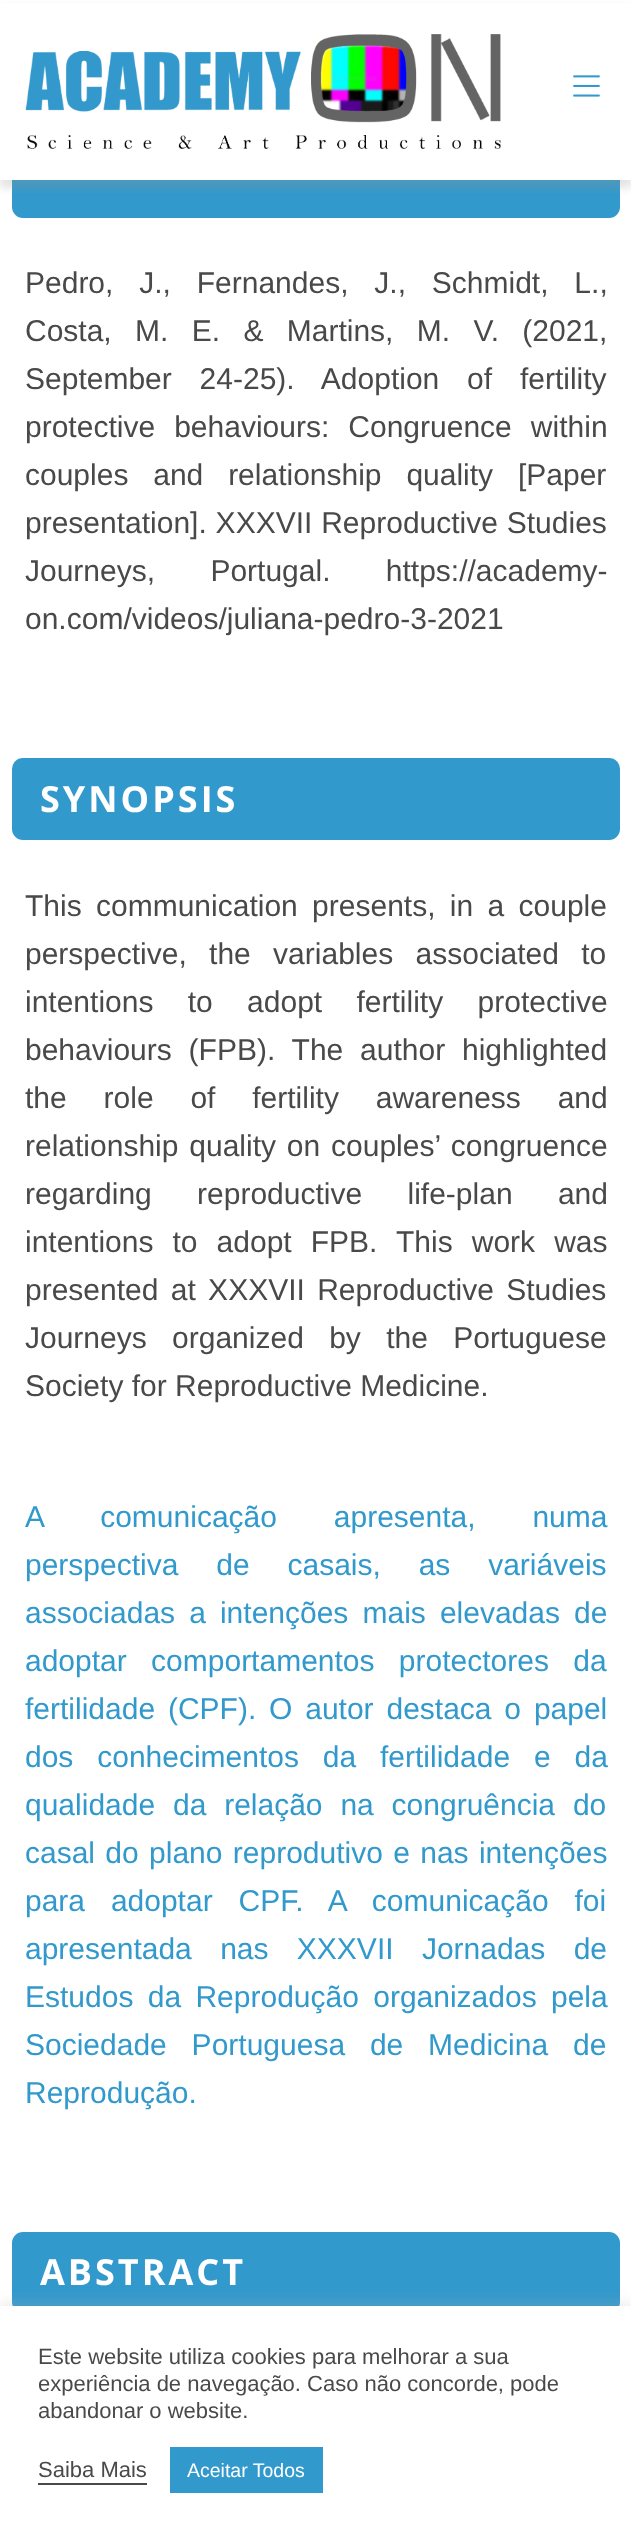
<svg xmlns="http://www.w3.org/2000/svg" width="631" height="2537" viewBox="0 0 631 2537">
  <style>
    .t1 { font: 30px Liberation Sans; fill: #494949; }
    .t2 { font: bold 36px Open Sans; letter-spacing: 3px; fill: #fff; }
    .t3 { font: 30px Liberation Sans; fill: #3299cd; }
    .t4 { font: 22px Liberation Sans; fill: #494949; }
    .t5 { font: 19.5px Liberation Sans; fill: #fff; }
  </style>
  <rect width="100%" height="100%" fill="#fff"/>
  <rect x="12" y="135" width="608" height="83" rx="11" fill="#3299cd"/>
  <rect x="0" y="8" width="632" height="180" fill="#97979145" filter="blur(4px)"/>
  <rect x="0" y="3" width="631" height="177" fill="#fff"/>
  <image x="25" y="34" width="476" height="115" href="images/1.png"/>
  <image x="573" y="75" width="27" height="22" href="images/2.png"/>
  <text x="25" y="293" word-spacing="17.5" class="t1">Pedro, J., Fernandes, J., Schmidt, L.,</text>
  <text x="25" y="341" word-spacing="15" class="t1">Costa, M. E. &amp; Martins, M. V. (2021,</text>
  <text x="25" y="389" word-spacing="19.5" class="t1">September 24-25). Adoption of fertility</text>
  <text x="25" y="437" word-spacing="10.75" class="t1">protective behaviours: Congruence within</text>
  <text x="25" y="485" word-spacing="16.5" class="t1">couples and relationship quality [Paper</text>
  <text x="25" y="533" word-spacing="0.5" class="t1">presentation]. XXXVII Reproductive Studies</text>
  <text x="25" y="581" word-spacing="47" class="t1">Journeys, Portugal. https://academy-</text>
  <text x="25" y="629" class="t1">on.com/videos/juliana-pedro-3-2021</text>
  <rect x="12" y="758" width="608" height="82" rx="11" fill="#3299cd"/>
  <text x="40" y="812" class="t2">SYNOPSIS</text>
  <text x="25" y="916" word-spacing="6" class="t1">This communication presents, in a couple</text>
  <text x="25" y="964" word-spacing="14" class="t1">perspective, the variables associated to</text>
  <text x="25" y="1012" word-spacing="26" class="t1">intentions to adopt fertility protective</text>
  <text x="25" y="1060" word-spacing="8.5" class="t1">behaviours (FPB). The author highlighted</text>
  <text x="25" y="1108" word-spacing="28.5" class="t1">the role of fertility awareness and</text>
  <text x="25" y="1156" word-spacing="2.5" class="t1">relationship quality on couples’ congruence</text>
  <text x="25" y="1204" word-spacing="37" class="t1">regarding reproductive life-plan and</text>
  <text x="25" y="1252" word-spacing="10.75" class="t1">intentions to adopt FPB. This work was</text>
  <text x="25" y="1300" word-spacing="4" class="t1">presented at XXXVII Reproductive Studies</text>
  <text x="25" y="1348" word-spacing="17" class="t1">Journeys organized by the Portuguese</text>
  <text x="25" y="1396" class="t1">Society for Reproductive Medicine.</text>
  <text x="25" y="1527" word-spacing="48.5" class="t3">A comunicação apresenta, numa</text>
  <text x="25" y="1575" word-spacing="29.5" class="t3">perspectiva de casais, as variáveis</text>
  <text x="25" y="1623" word-spacing="5.75" class="t3">associadas a intenções mais elevadas de</text>
  <text x="25" y="1671" word-spacing="16" class="t3">adoptar comportamentos protectores da</text>
  <text x="25" y="1719" word-spacing="4.5" class="t3">fertilidade (CPF). O autor destaca o papel</text>
  <text x="25" y="1767" word-spacing="15.5" class="t3">dos conhecimentos da fertilidade e da</text>
  <text x="25" y="1815" word-spacing="9.5" class="t3">qualidade da relação na congruência do</text>
  <text x="25" y="1863" word-spacing="2" class="t3">casal do plano reprodutivo e nas intenções</text>
  <text x="25" y="1911" word-spacing="17.5" class="t3">para adoptar CPF. A comunicação foi</text>
  <text x="25" y="1959" word-spacing="20" class="t3">apresentada nas XXXVII Jornadas de</text>
  <text x="25" y="2007" word-spacing="6" class="t3">Estudos da Reprodução organizados pela</text>
  <text x="25" y="2055" word-spacing="16.5" class="t3">Sociedade Portuguesa de Medicina de</text>
  <text x="25" y="2103" class="t3">Reprodução.</text>
  <rect x="12" y="2232" width="608" height="81" rx="11" fill="#3299cd"/>
  <text x="40" y="2285" class="t2">ABSTRACT</text>
  <rect x="0" y="2304" width="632" height="233" fill="#acabab4d" filter="blur(7.5px)"/>
  <rect x="0" y="2306" width="631" height="231" fill="#fff"/>
  <text x="38" y="2364" class="t4">Este website utiliza cookies para melhorar a sua</text>
  <text x="38" y="2391" class="t4">experiência de navegação. Caso não concorde, pode</text>
  <text x="38" y="2418" class="t4">abandonar o website.</text>
  <rect x="38" y="2483" width="109" height="2" fill="#494949"/>
  <text x="38" y="2477" class="t4">Saiba Mais</text>
  <rect x="170" y="2447" width="153" height="46" fill="#3299cd"/>
  <text x="187" y="2477" class="t5">Aceitar Todos</text>
</svg>
